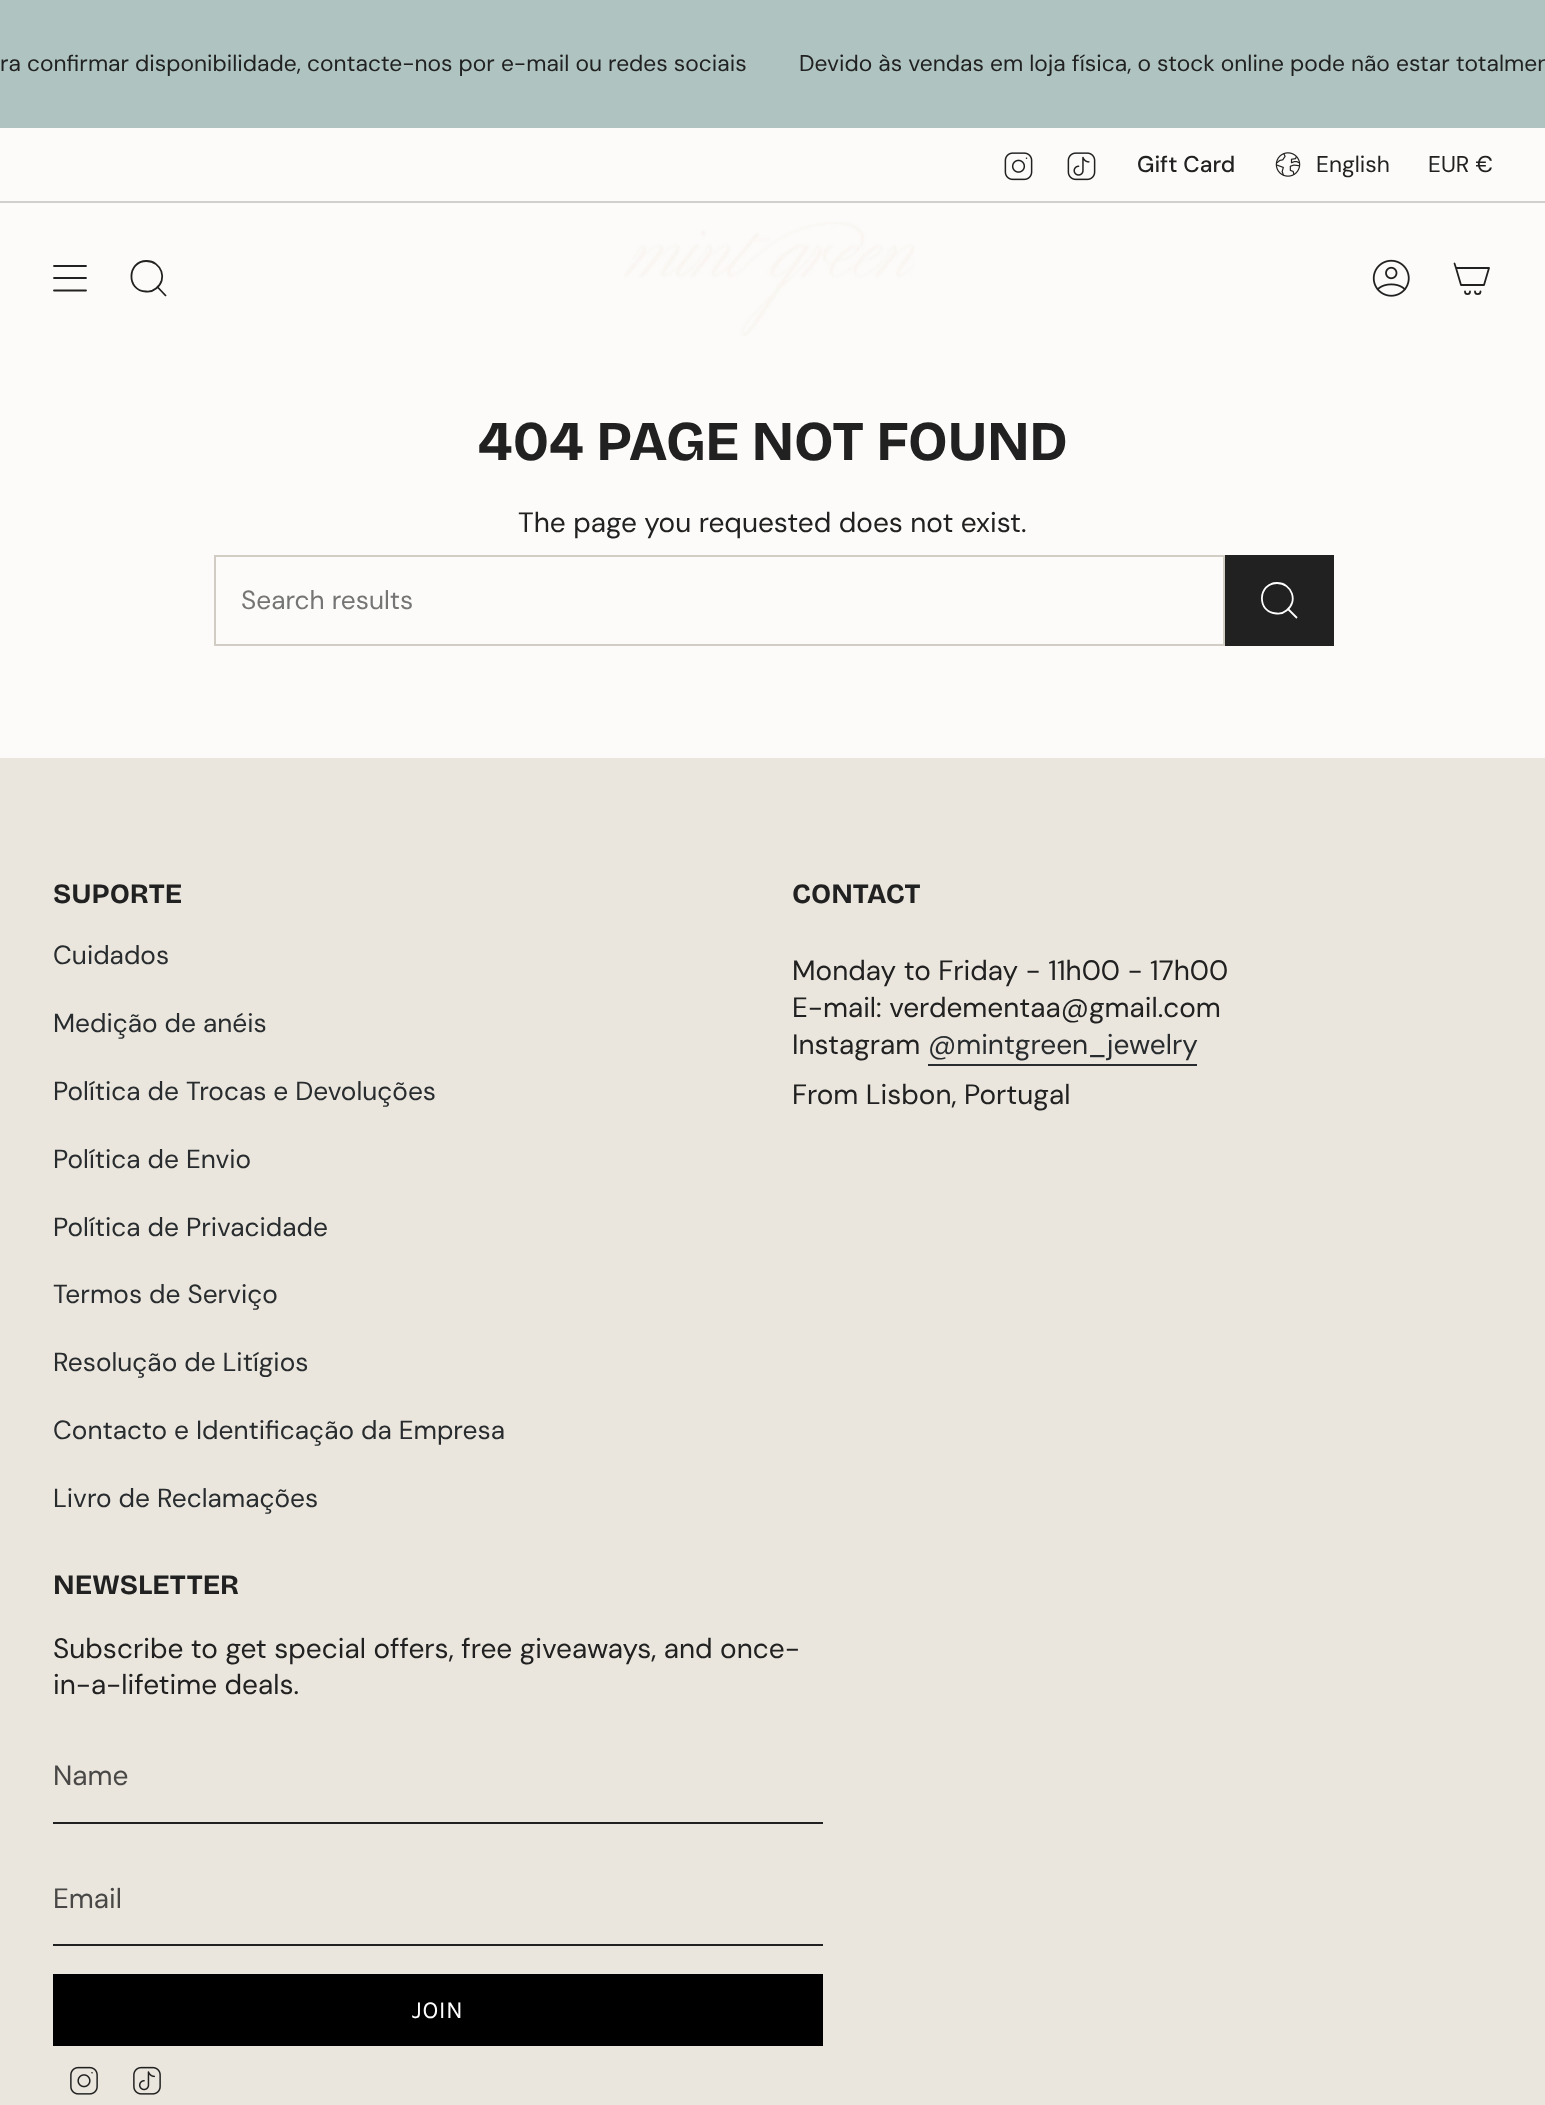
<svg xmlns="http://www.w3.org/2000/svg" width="1545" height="2105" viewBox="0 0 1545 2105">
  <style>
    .t1 { font: 22.75px 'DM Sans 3'; fill: #212121; }
    .t2 { font: 500 22.75px DM Sans; fill: #212121; }
    .t3 { font: bold 56px 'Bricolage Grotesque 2'; fill: #212121; }
    .t4 { font: 28px DM Sans; fill: #212121; }
    .t5 { font: 26.25px 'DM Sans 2'; fill: #757575; }
    .t6 { font: bold 28px Bricolage Grotesque; fill: #212121; }
    .t7 { font: 26.25px 'DM Sans 2'; fill: #282c2e; }
    .t8 { font: 28px DM Sans; fill: #282c2e; }
    .t9 { font: 28px DM Sans; fill: #494847; }
    .t10 { font: 24.5px Karla; letter-spacing: 0.5px; fill: #fff; }
  </style>
  <rect width="100%" height="100%" fill="#fcfbf9"/>
  <rect x="0" y="0" width="1545" height="128" fill="#afc4c0"/>
  <text x="0" y="71" class="t1">ra confirmar disponibilidade, contacte-nos por e-mail ou redes sociais</text>
  <text x="799" y="71" class="t1">Devido às vendas em loja física, o stock online pode não estar totalmen</text>
  <image x="1004" y="152" width="29" height="29" href="images/1.png"/>
  <image x="1067" y="152" width="29" height="29" href="images/2.png"/>
  <text x="1137" y="172" class="t2">Gift Card</text>
  <image x="1275" y="152" width="26" height="25" href="images/3.png"/>
  <text x="1316" y="172" class="t1">English</text>
  <text x="1428" y="172" class="t1">EUR €</text>
  <rect x="0" y="201" width="1545" height="2" fill="#d0cfce"/>
  <path d="M54 266H86M54 278H86M54 290.5H86" fill="none" stroke="#212121" stroke-width="1.8" stroke-linecap="round" stroke-linejoin="round"/>
  <path d="M146.5 261C161.5 261 168 280 156 288.5C153 291 149.5 292 146 291.5C126 291 127 261 146.5 261ZM157.5 287L166 296" fill="none" stroke="#212121" stroke-width="1.8"/>
  <image x="624" y="222" width="291" height="114" href="images/4.png"/>
  <image x="1372" y="259" width="38" height="38" href="images/5.png"/>
  <path d="M1456 268H1489L1484 285H1461ZM1456 268L1454.5 263.5M1470 291.5C1470 295 1465 295 1465 291.5M1480.5 291.5C1480.5 295 1475 295 1475 291.5" fill="none" stroke="#212121" stroke-width="1.8" stroke-linecap="round" stroke-linejoin="round"/>
  <text x="478" y="460" class="t3">404 PAGE NOT FOUND</text>
  <text x="518" y="532" class="t4">The page you requested does not exist.</text>
  <rect x="215" y="556" width="1009" height="89" fill="none" stroke="#d1cdc4" stroke-width="2"/>
  <text x="241" y="609" class="t5">Search results</text>
  <rect x="1225" y="555" width="109" height="91" fill="#212121"/>
  <path d="M1277 583C1292 583 1298.5 602 1286.5 610.5C1283.5 613 1280 614 1276.5 613.5C1256.5 613 1257.5 583 1277 583ZM1288 609L1297 618" fill="none" stroke="#fff" stroke-width="1.8"/>
  <rect x="0" y="758" width="1545" height="1347" fill="#eae6dd"/>
  <text x="53" y="903" class="t6">SUPORTE</text>
  <text x="53" y="964" class="t7">Cuidados</text>
  <text x="53" y="1032" class="t7">Medição de anéis</text>
  <text x="53" y="1100" class="t7">Política de Trocas e Devoluções</text>
  <text x="53" y="1168" class="t7">Política de Envio</text>
  <text x="53" y="1236" class="t7">Política de Privacidade</text>
  <text x="53" y="1303" class="t7">Termos de Serviço</text>
  <text x="53" y="1371" class="t7">Resolução de Litígios</text>
  <text x="53" y="1439" class="t7">Contacto e Identificação da Empresa</text>
  <text x="53" y="1507" class="t7">Livro de Reclamações</text>
  <text x="792" y="903" class="t6">CONTACT</text>
  <text x="792" y="980" class="t4">Monday to Friday - 11h00 - 17h00</text>
  <text x="792" y="1017" class="t4">E-mail: verdementaa@gmail.com</text>
  <text x="792" y="1054" class="t4">Instagram</text>
  <text x="928" y="1054" class="t8">@mintgreen_jewelry</text>
  <rect x="928" y="1064" width="269" height="2" fill="#282c2e"/>
  <text x="792" y="1104" class="t4">From Lisbon, Portugal</text>
  <text x="53" y="1594" class="t6">NEWSLETTER</text>
  <text x="53" y="1658" class="t4">Subscribe to get special offers, free giveaways, and once-</text>
  <text x="53" y="1694" class="t4">in-a-lifetime deals.</text>
  <rect x="53" y="1822" width="770" height="2" fill="#212121"/>
  <text x="53" y="1785" class="t9">Name</text>
  <rect x="53" y="1944" width="770" height="2" fill="#212121"/>
  <text x="53" y="1908" class="t9">Email</text>
  <rect x="53" y="1974" width="770" height="72" fill="#000"/>
  <text x="412" y="2018" class="t10">JOIN</text>
  <image x="70" y="2066" width="28" height="29" href="images/6.png"/>
  <image x="133" y="2066" width="28" height="29" href="images/7.png"/>
</svg>
